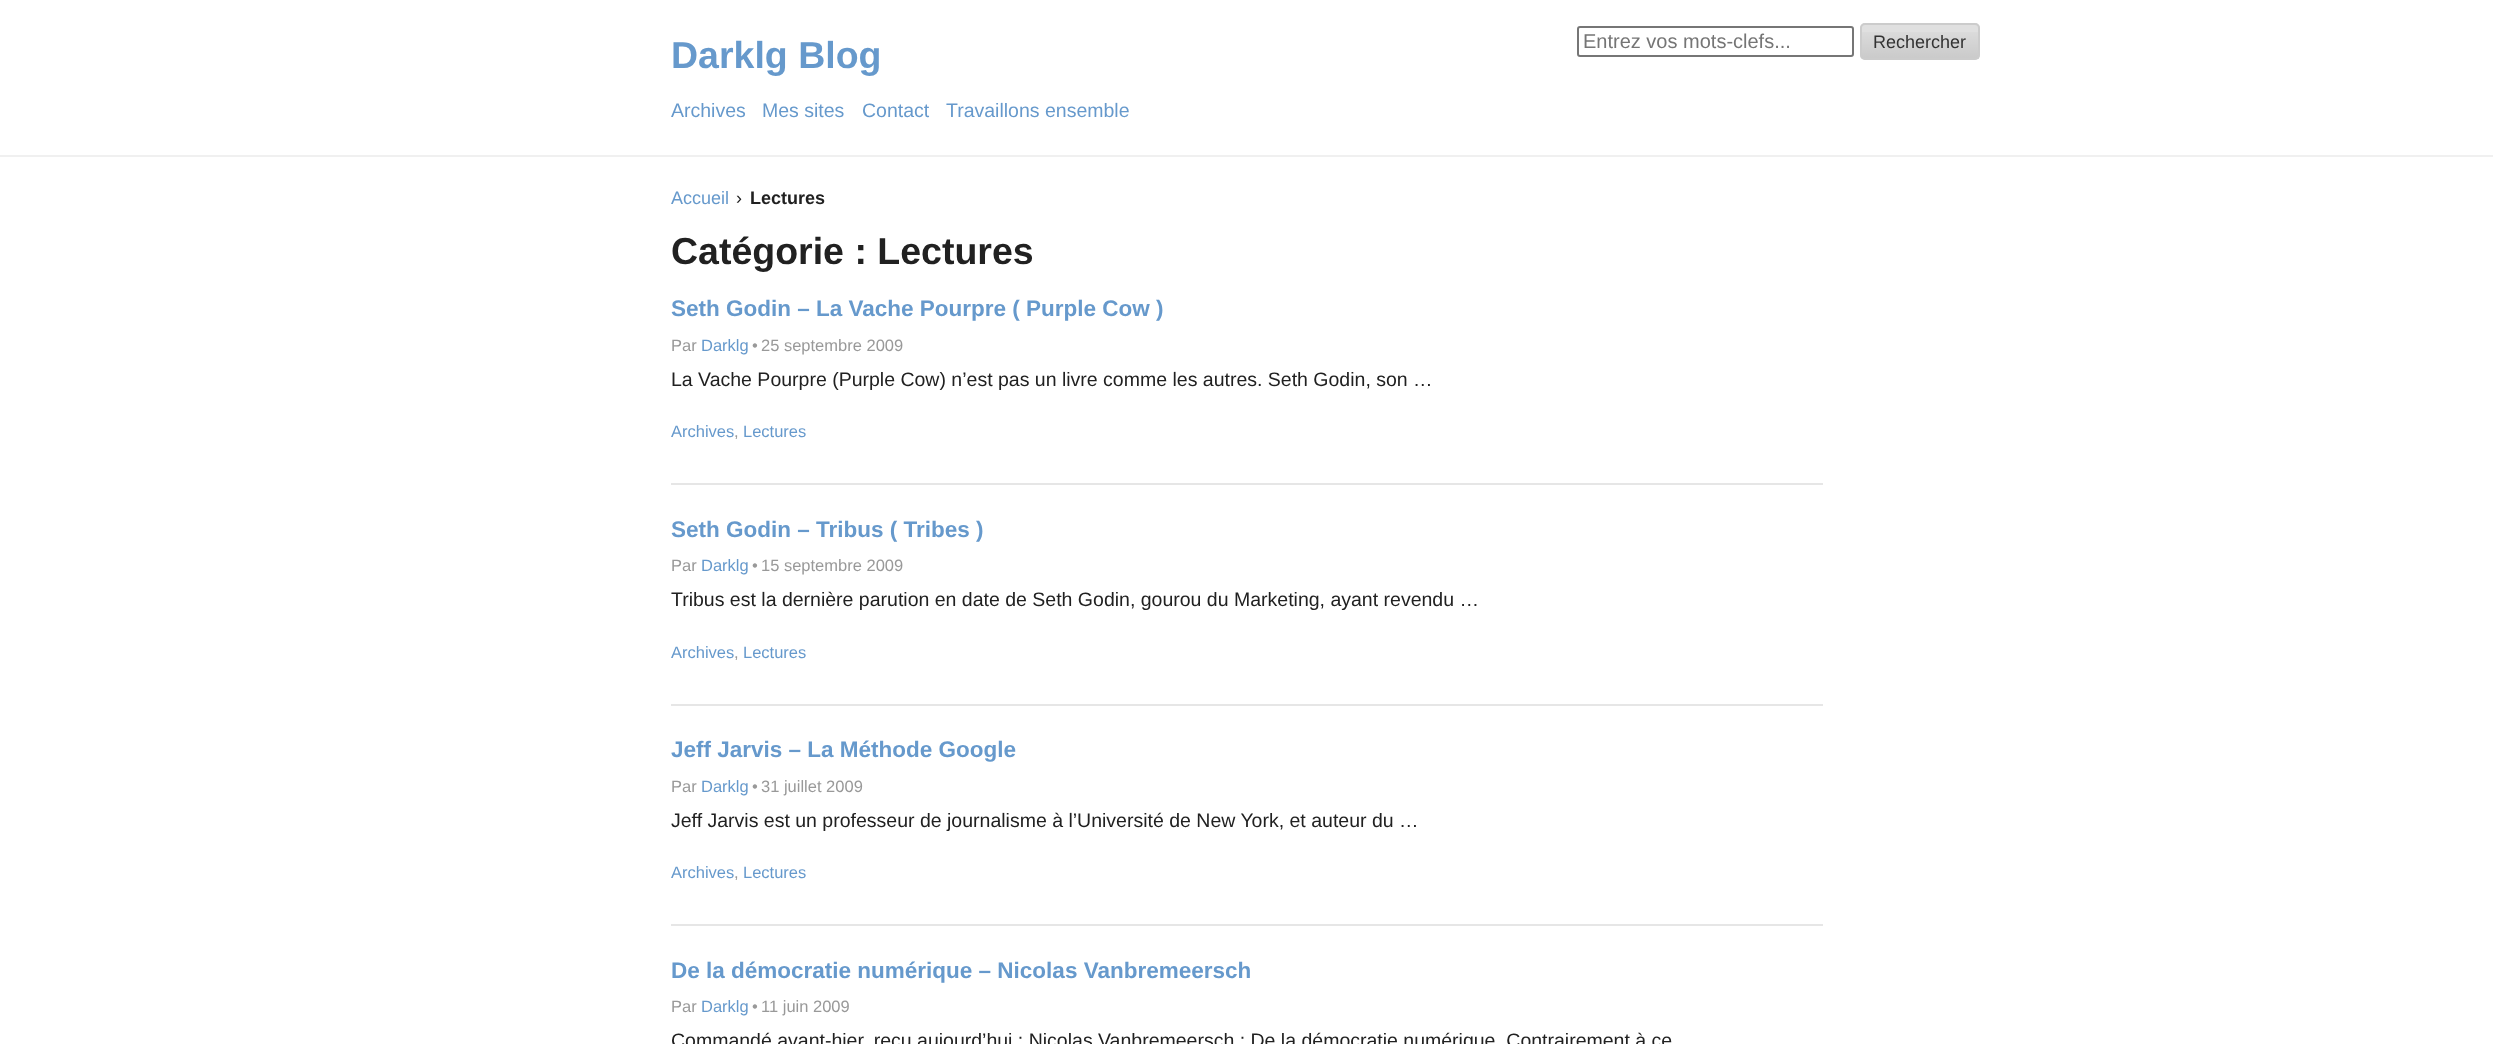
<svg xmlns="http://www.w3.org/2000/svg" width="2493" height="1044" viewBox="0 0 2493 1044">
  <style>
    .t1 { font: bold 37.5px Liberation Sans; fill: #69c; }
    .t2 { font: 20px Liberation Sans; fill: #757575; }
    .t3 { font: 18px Liberation Sans; fill: #333; }
    .t4 { font: 19.5px Liberation Sans; fill: #69c; }
    .t5 { font: 18px Liberation Sans; fill: #69c; }
    .t6 { font: 18px Liberation Sans; fill: #212121; }
    .t7 { font: bold 18px Liberation Sans; fill: #212121; }
    .t8 { font: bold 37.5px Liberation Sans; fill: #212121; }
    .t9 { font: bold 22.5px Liberation Sans; fill: #69c; }
    .t10 { font: 16.5px Liberation Sans; fill: #999; }
    .t11 { font: 16.5px Liberation Sans; fill: #69c; }
    .t12 { font: 19.5px Liberation Sans; fill: #212121; }
  </style>
  <defs>
    <linearGradient id="g1" gradientUnits="userSpaceOnUse" x1="1920" y1="24" x2="1920" y2="59"><stop offset="0" stop-color="#000" stop-opacity="0"/><stop offset="1" stop-color="#000" stop-opacity="0.1"/></linearGradient>
  </defs>
  <rect width="100%" height="100%" fill="#fff"/>
  <rect x="0" y="155" width="2493" height="2" fill="#f0f0f0"/>
  <text x="671" y="68" class="t1">Darklg Blog</text>
  <rect x="1578" y="27" width="275" height="29" rx="2" fill="none" stroke="#767676" stroke-width="2"/>
  <text x="1583" y="48" class="t2">Entrez vos mots-clefs...</text>
  <rect x="1860" y="23" width="120" height="37" rx="5" fill="#e0e0e0"/>
  <rect x="1862" y="32" width="117" height="27" fill="url(#g1)"/>
  <rect x="1861" y="24" width="118" height="35" rx="4" fill="none" stroke="#ccc" stroke-width="2"/>
  <text x="1873" y="48" class="t3">Rechercher</text>
  <text x="671" y="117" class="t4">Archives</text>
  <text x="762" y="117" class="t4">Mes sites</text>
  <text x="862" y="117" class="t4">Contact</text>
  <text x="946" y="117" class="t4">Travaillons ensemble</text>
  <text x="671" y="204" class="t5">Accueil</text>
  <text x="736" y="204" class="t6">›</text>
  <text x="750" y="204" class="t7">Lectures</text>
  <text x="671" y="264" class="t8">Catégorie : Lectures</text>
  <text x="671" y="316" class="t9">Seth Godin – La Vache Pourpre ( Purple Cow )</text>
  <text x="671" y="351" class="t10">Par</text>
  <text x="701" y="351" class="t11">Darklg</text>
  <text x="752" y="351" class="t10">•</text>
  <text x="761" y="351" class="t10">25 septembre 2009</text>
  <text x="671" y="386" class="t12">La Vache Pourpre (Purple Cow) n’est pas un livre comme les autres. Seth Godin, son …</text>
  <text x="671" y="437" class="t11">Archives</text>
  <text x="734" y="437" class="t10">,</text>
  <text x="743" y="437" class="t11">Lectures</text>
  <rect x="671" y="483" width="1152" height="2" fill="#e6e6e6"/>
  <text x="671" y="537" class="t9">Seth Godin – Tribus ( Tribes )</text>
  <text x="671" y="571" class="t10">Par</text>
  <text x="701" y="571" class="t11">Darklg</text>
  <text x="752" y="571" class="t10">•</text>
  <text x="761" y="571" class="t10">15 septembre 2009</text>
  <text x="671" y="606" class="t12">Tribus est la dernière parution en date de Seth Godin, gourou du Marketing, ayant revendu …</text>
  <text x="671" y="658" class="t11">Archives</text>
  <text x="734" y="658" class="t10">,</text>
  <text x="743" y="658" class="t11">Lectures</text>
  <rect x="671" y="704" width="1152" height="2" fill="#e6e6e6"/>
  <text x="671" y="757" class="t9">Jeff Jarvis – La Méthode Google</text>
  <text x="671" y="792" class="t10">Par</text>
  <text x="701" y="792" class="t11">Darklg</text>
  <text x="752" y="792" class="t10">•</text>
  <text x="761" y="792" class="t10">31 juillet 2009</text>
  <text x="671" y="827" class="t12">Jeff Jarvis est un professeur de journalisme à l’Université de New York, et auteur du …</text>
  <text x="671" y="878" class="t11">Archives</text>
  <text x="734" y="878" class="t10">,</text>
  <text x="743" y="878" class="t11">Lectures</text>
  <rect x="671" y="924" width="1152" height="2" fill="#e6e6e6"/>
  <text x="671" y="978" class="t9">De la démocratie numérique – Nicolas Vanbremeersch</text>
  <text x="671" y="1012" class="t10">Par</text>
  <text x="701" y="1012" class="t11">Darklg</text>
  <text x="752" y="1012" class="t10">•</text>
  <text x="761" y="1012" class="t10">11 juin 2009</text>
  <text x="671" y="1047" class="t12">Commandé avant-hier, reçu aujourd’hui : Nicolas Vanbremeersch : De la démocratie numérique. Contrairement à ce</text>
</svg>
